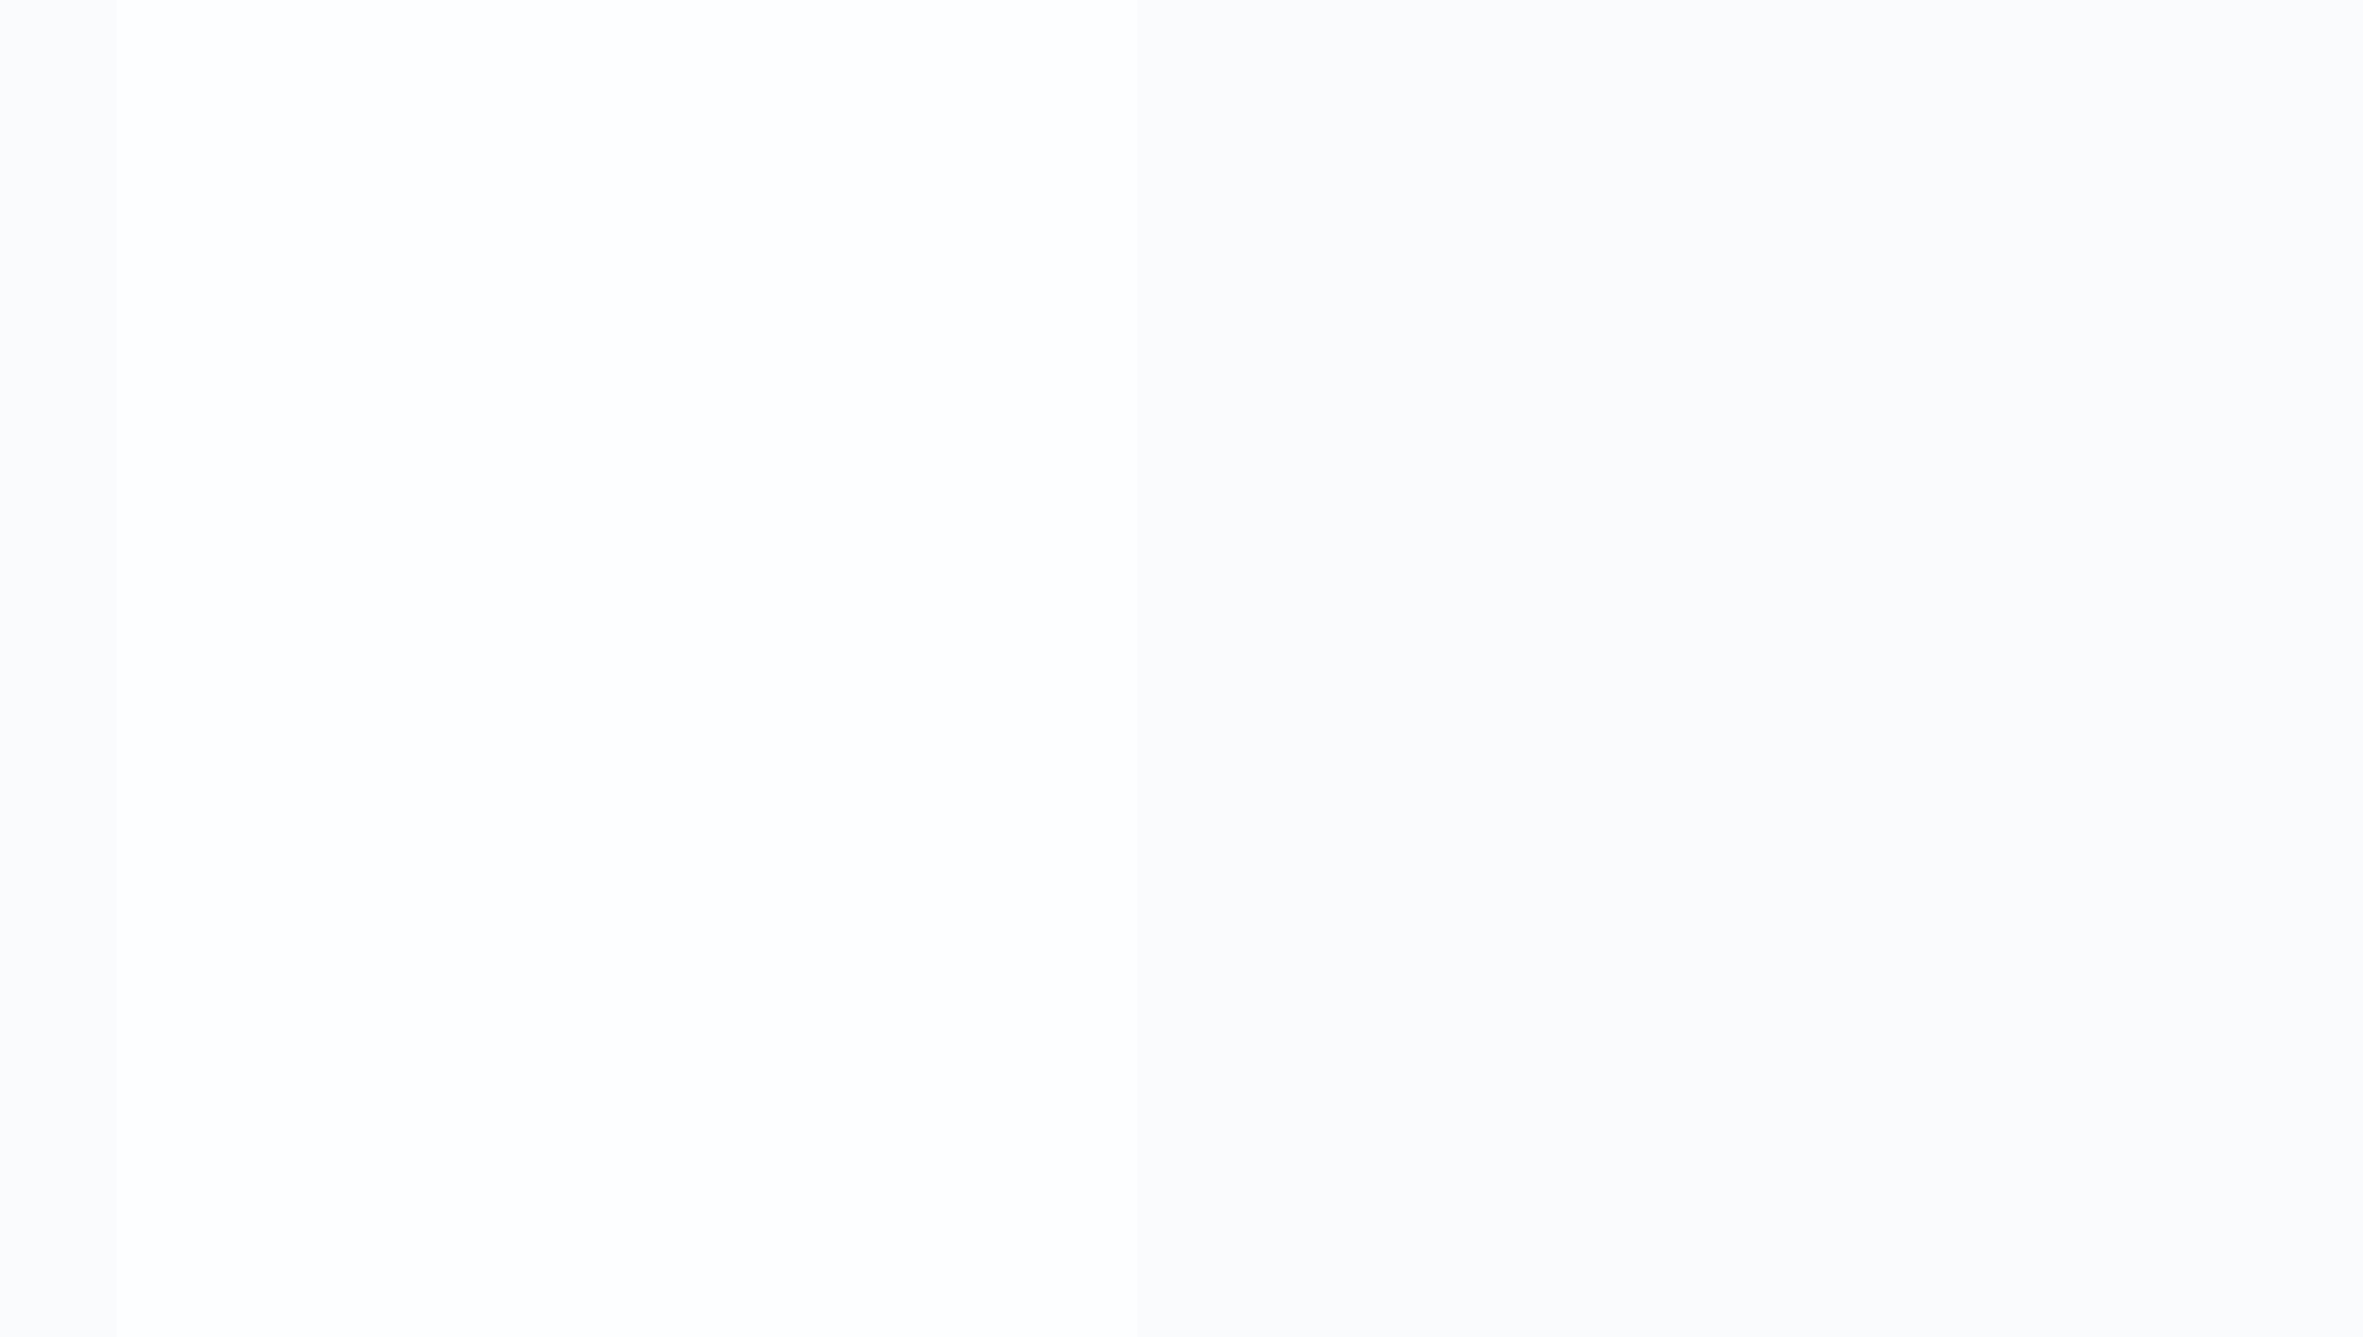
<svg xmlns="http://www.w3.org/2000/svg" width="2363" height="1337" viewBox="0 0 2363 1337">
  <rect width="100%" height="100%" fill="#fafbfc"/>
  <rect x="117" y="0" width="1020" height="1337" fill="#fdfeff"/>
</svg>
